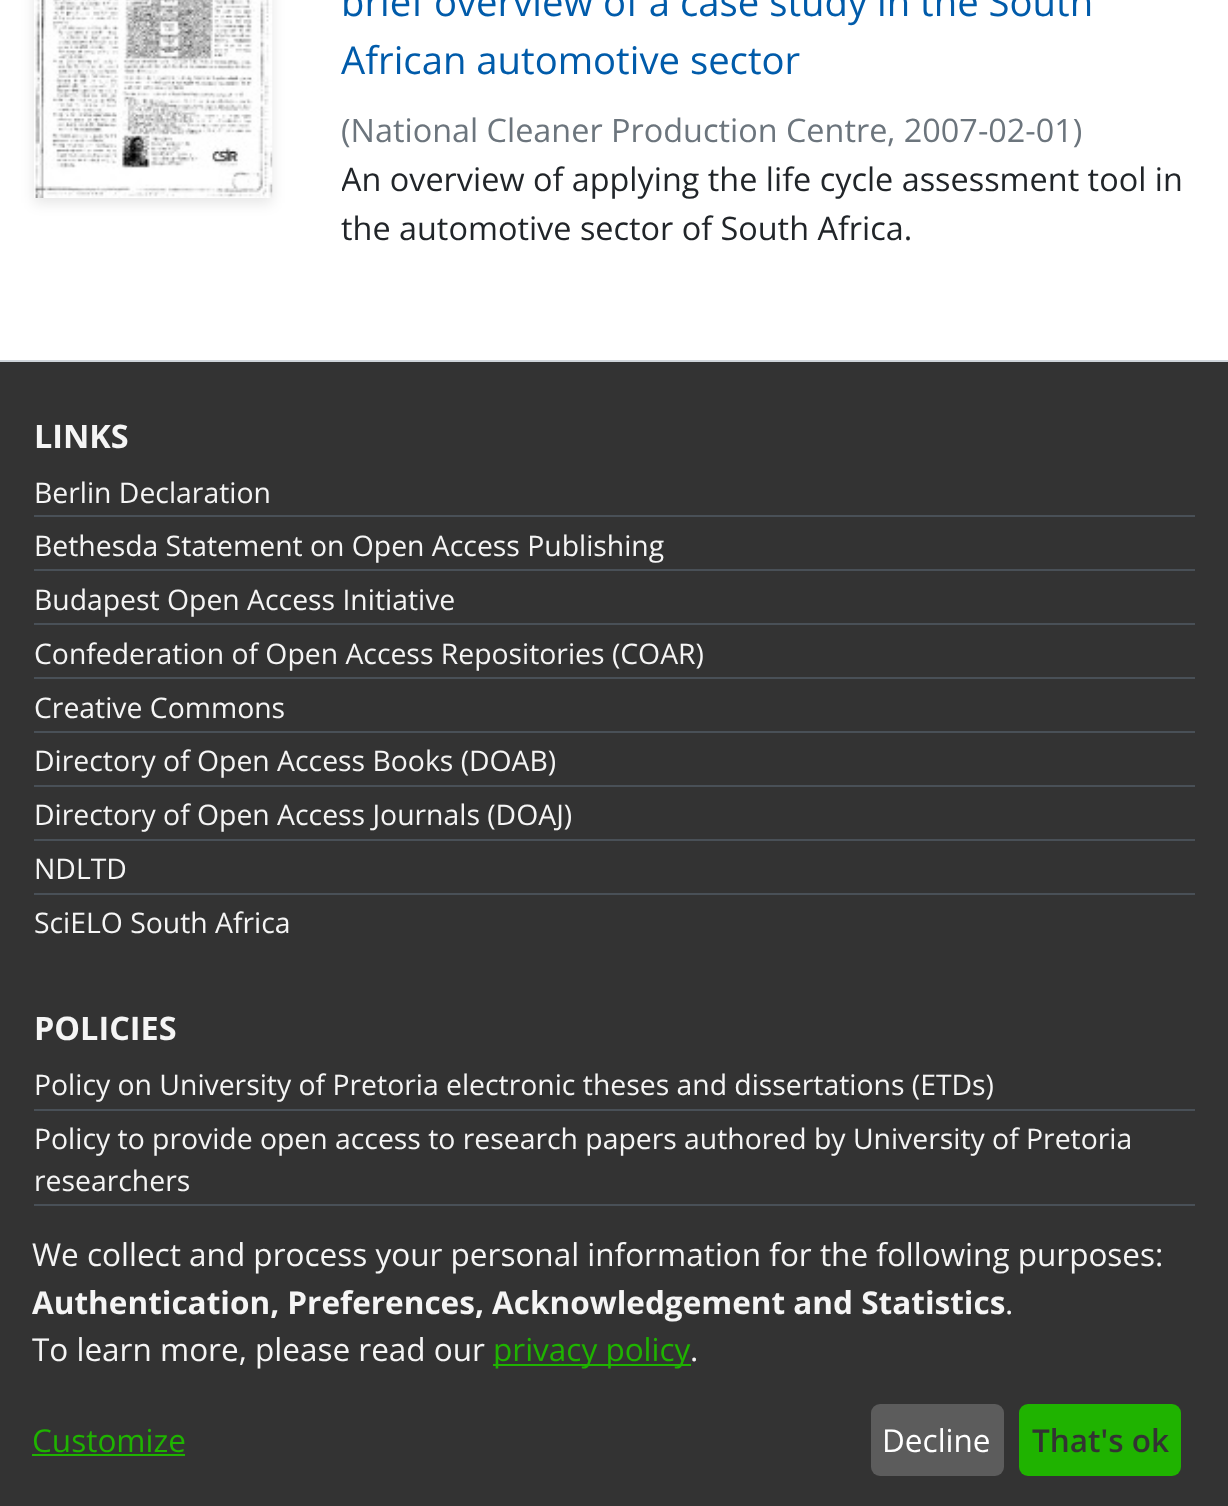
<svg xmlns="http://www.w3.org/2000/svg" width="1228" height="1506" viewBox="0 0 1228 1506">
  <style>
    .t1 { font: 38.25px Open Sans; fill: #005baa; }
    .t2 { font: 32.4px Open Sans; fill: #6c757d; }
    .t3 { font: 32.4px Open Sans; fill: #212529; }
    .t4 { font: bold 32.4px Open Sans; fill: #f5f5f5; }
    .t5 { font: 28.35px Open Sans; fill: #f5f5f5; }
    .t6 { font: 31.5px Open Sans; fill: #f5f5f5; }
    .t7 { font: bold 31.5px Open Sans; fill: #f5f5f5; }
    .t8 { font: 31.5px Open Sans; fill: #1fb300; }
    .t9 { font: 31.5px Open Sans; fill: #fff; }
    .t10 { font: 600 31.5px Open Sans; fill: #333; }
  </style>
  <defs>
    <clipPath id="clip1"><rect x="342" y="155" width="853" height="97"/></clipPath>
  </defs>
  <rect width="100%" height="100%" fill="#fff"/>
  <rect x="34" y="-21" width="238" height="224" fill="#0000001a" filter="blur(7px)"/>
  <image x="34" y="0" width="239" height="198" href="images/1.png"/>
  <text x="341" y="16" class="t1">brief overview of a case study in the South</text>
  <text x="341" y="74" class="t1">African automotive sector</text>
  <text x="341" y="142" class="t2">(National Cleaner Production Centre</text>
  <text x="887" y="142" class="t2">, 2007-02-01)</text>
  <g clip-path="url(#clip1)">
    <text x="341" y="191" class="t3">An overview of applying the life cycle assessment tool in</text>
  </g>
  <text x="341" y="240" class="t3">the automotive sector of South Africa.</text>
  <rect x="0" y="360" width="1228" height="2" fill="#ced4da"/>
  <rect x="0" y="362" width="1228" height="1144" fill="#333"/>
  <text x="34" y="448" class="t4">LINKS</text>
  <rect x="34" y="515" width="1161" height="2" fill="#495057"/>
  <text x="34" y="503" class="t5">Berlin Declaration</text>
  <rect x="34" y="569" width="1161" height="2" fill="#495057"/>
  <text x="34" y="556" class="t5">Bethesda Statement on Open Access Publishing</text>
  <rect x="34" y="623" width="1161" height="2" fill="#495057"/>
  <text x="34" y="610" class="t5">Budapest Open Access Initiative</text>
  <rect x="34" y="677" width="1161" height="2" fill="#495057"/>
  <text x="34" y="664" class="t5">Confederation of Open Access Repositories (COAR)</text>
  <rect x="34" y="731" width="1161" height="2" fill="#495057"/>
  <text x="34" y="718" class="t5">Creative Commons</text>
  <rect x="34" y="785" width="1161" height="2" fill="#495057"/>
  <text x="34" y="771" class="t5">Directory of Open Access Books (DOAB)</text>
  <rect x="34" y="839" width="1161" height="2" fill="#495057"/>
  <text x="34" y="825" class="t5">Directory of Open Access Journals (DOAJ)</text>
  <rect x="34" y="893" width="1161" height="2" fill="#495057"/>
  <text x="34" y="879" class="t5">NDLTD</text>
  <text x="34" y="933" class="t5">SciELO South Africa</text>
  <text x="34" y="1040" class="t4">POLICIES</text>
  <rect x="34" y="1109" width="1161" height="2" fill="#495057"/>
  <text x="34" y="1095" class="t5">Policy on University of Pretoria electronic theses and dissertations (ETDs)</text>
  <rect x="34" y="1204" width="1161" height="2" fill="#495057"/>
  <text x="34" y="1149" class="t5">Policy to provide open access to research papers authored by University of Pretoria</text>
  <text x="34" y="1191" class="t5">researchers</text>
  <text x="32" y="1266" class="t6">We collect and process your personal information for the following purposes:</text>
  <text x="32" y="1314" class="t7">Authentication, Preferences, Acknowledgement and Statistics</text>
  <text x="1005" y="1314" class="t6">.</text>
  <text x="32" y="1361" class="t6">To learn more, please read our</text>
  <rect x="493" y="1364" width="198" height="2" fill="#1fb300"/>
  <text x="493" y="1361" class="t8">privacy policy</text>
  <text x="690" y="1361" class="t6">.</text>
  <text x="32" y="1452" class="t8">Customize</text>
  <rect x="32" y="1454" width="153" height="2" fill="#1fb300"/>
  <rect x="871" y="1404" width="133" height="72" rx="9" fill="#5c5c5c"/>
  <text x="882" y="1452" class="t9">Decline</text>
  <rect x="1019" y="1404" width="162" height="72" rx="9" fill="#1fb300"/>
  <text x="1032" y="1452" class="t10">That's ok</text>
</svg>
